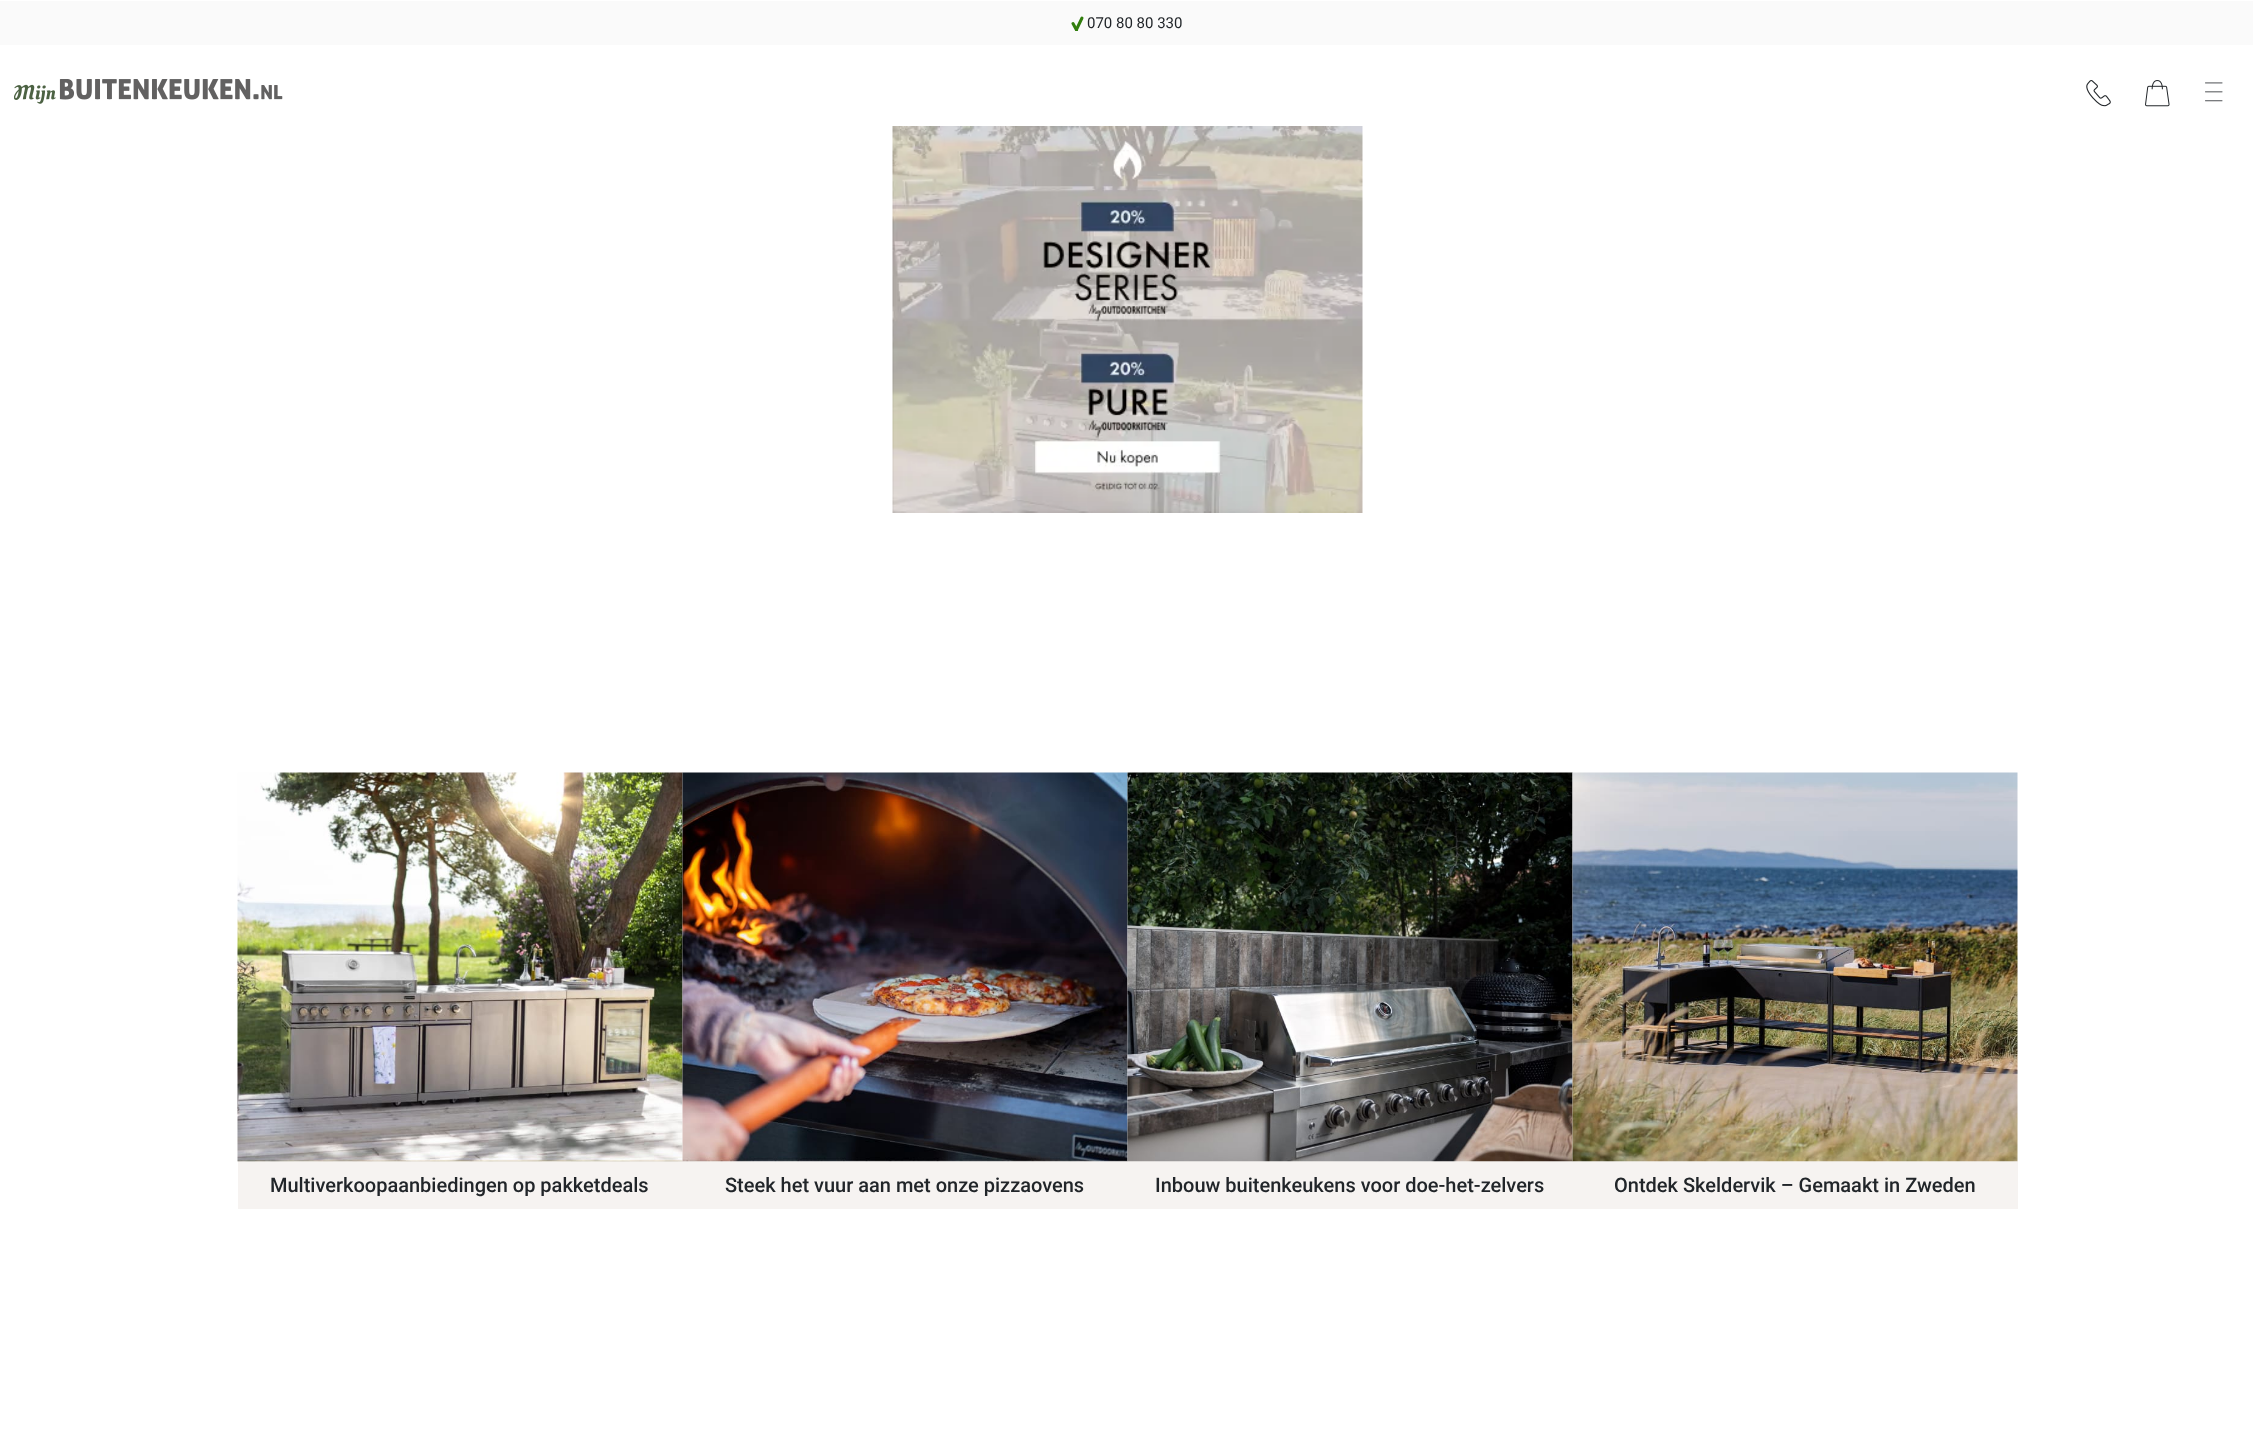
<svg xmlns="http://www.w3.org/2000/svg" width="2253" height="1446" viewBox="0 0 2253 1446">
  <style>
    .t1 { font: 15px Roboto; fill: #212529; }
    .t2 { font: 500 20px Roboto; fill: #212529; }
  </style>
  <defs>
    <clipPath id="clip1"><rect x="1071" y="16" width="12" height="15"/></clipPath>
  </defs>
  <rect width="100%" height="100%" fill="#fff"/>
  <rect x="0" y="1" width="2253" height="44" fill="#fafafa"/>
  <g clip-path="url(#clip1)">
    <path d="M1073 23.5L1076.5 30" fill="none" stroke="#317e0d" stroke-width="3" stroke-linecap="round"/>
  </g>
  <path d="M1076.5 29.5L1082 18" fill="none" stroke="#317e0d" stroke-width="3" stroke-linecap="round"/>
  <text x="1087" y="28" class="t1">070 80 80 330</text>
  <image x="14" y="79" width="269" height="25" href="images/1.png"/>
  <image x="2086" y="80" width="25" height="27" href="images/2.png"/>
  <image x="2145" y="80" width="25" height="27" href="images/3.png"/>
  <image x="2205" y="82" width="18" height="20" href="images/4.png"/>
  <image x="892" y="126" width="471" height="387" href="images/5.png"/>
  <rect x="238" y="1161" width="1780" height="48" fill="#f6f3f1"/>
  <image x="237" y="772" width="446" height="390" href="images/6.png"/>
  <text x="270" y="1192" class="t2">Multiverkoopaanbiedingen op pakketdeals</text>
  <image x="682" y="772" width="446" height="390" href="images/7.png"/>
  <text x="725" y="1192" class="t2">Steek het vuur aan met onze pizzaovens</text>
  <image x="1127" y="772" width="446" height="390" href="images/8.png"/>
  <text x="1155" y="1192" class="t2">Inbouw buitenkeukens voor doe-het-zelvers</text>
  <image x="1572" y="772" width="446" height="390" href="images/9.png"/>
  <text x="1614" y="1192" class="t2">Ontdek Skeldervik – Gemaakt in Zweden</text>
</svg>
